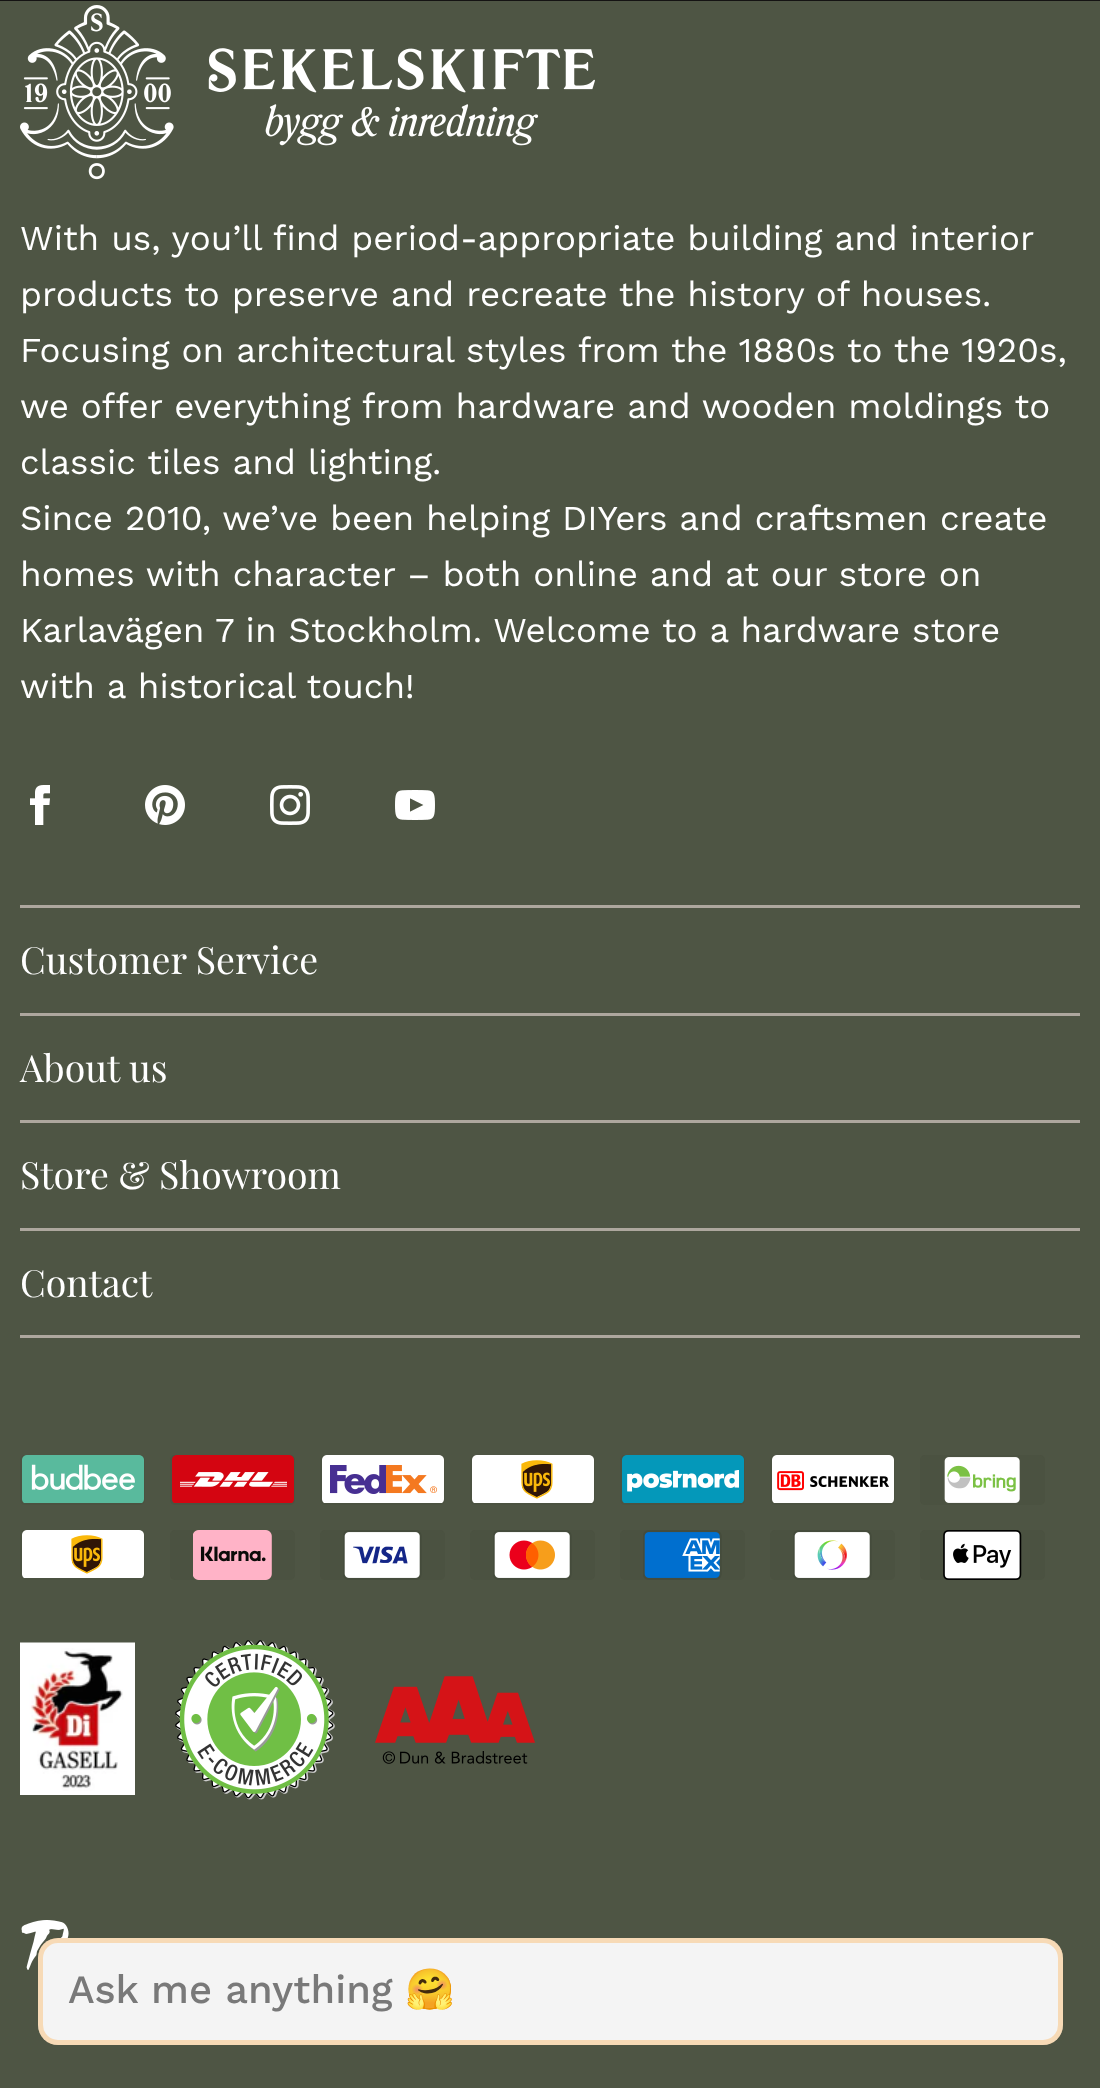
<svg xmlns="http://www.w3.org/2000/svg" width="1100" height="2088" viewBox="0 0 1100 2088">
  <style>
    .t1 { font: 35px Work Sans; fill: #fff; }
    .t2 { font: 37.5px Playfair Display; fill: #fff; }
    .t3 { font: 500 40px Work Sans; fill: #797979; }
    .t4 { font: 40px Noto Color Emoji; fill: #797979; }
  </style>
  <rect width="100%" height="100%" fill="#4e5544"/>
  <rect x="0" y="0" width="1100" height="1" fill="#141313"/>
  <image x="20" y="5" width="575" height="175" href="images/1.png"/>
  <text x="20" y="250" class="t1">With us, you’ll find period-appropriate building and interior</text>
  <text x="20" y="306" class="t1">products to preserve and recreate the history of houses.</text>
  <text x="20" y="362" class="t1">Focusing on architectural styles from the 1880s to the 1920s,</text>
  <text x="20" y="418" class="t1">we offer everything from hardware and wooden moldings to</text>
  <text x="20" y="474" class="t1">classic tiles and lighting.</text>
  <text x="20" y="530" class="t1">Since 2010, we’ve been helping DIYers and craftsmen create</text>
  <text x="20" y="586" class="t1">homes with character – both online and at our store on</text>
  <text x="20" y="642" class="t1">Karlavägen 7 in Stockholm. Welcome to a hardware store</text>
  <text x="20" y="698" class="t1">with a historical touch!</text>
  <image x="30" y="785" width="20" height="40" href="images/2.png"/>
  <image x="145" y="785" width="40" height="40" href="images/3.png"/>
  <image x="270" y="785" width="40" height="40" href="images/4.png"/>
  <image x="395" y="790" width="40" height="30" href="images/5.png"/>
  <rect x="20" y="905" width="1060" height="3" fill="#ada79e"/>
  <rect x="20" y="1013" width="1060" height="3" fill="#ada79e"/>
  <text x="20" y="974" class="t2">Customer Service</text>
  <rect x="20" y="1120" width="1060" height="3" fill="#ada79e"/>
  <text x="20" y="1082" class="t2">About us</text>
  <rect x="20" y="1228" width="1060" height="3" fill="#ada79e"/>
  <text x="20" y="1189" class="t2">Store &amp; Showroom</text>
  <rect x="20" y="1335" width="1060" height="3" fill="#ada79e"/>
  <text x="20" y="1297" class="t2">Contact</text>
  <rect x="20" y="1455" width="125" height="50" rx="5" fill="#4b5241"/>
  <image x="22" y="1455" width="122" height="48" href="images/6.png"/>
  <rect x="170" y="1455" width="125" height="50" rx="5" fill="#4b5241"/>
  <image x="172" y="1455" width="122" height="48" href="images/7.png"/>
  <rect x="320" y="1455" width="125" height="50" rx="5" fill="#4b5241"/>
  <image x="322" y="1455" width="122" height="48" href="images/8.png"/>
  <rect x="470" y="1455" width="125" height="50" rx="5" fill="#4b5241"/>
  <image x="472" y="1455" width="122" height="48" href="images/9.png"/>
  <rect x="620" y="1455" width="125" height="50" rx="5" fill="#4b5241"/>
  <image x="622" y="1455" width="122" height="48" href="images/10.png"/>
  <rect x="770" y="1455" width="125" height="50" rx="5" fill="#4b5241"/>
  <image x="772" y="1455" width="122" height="48" href="images/11.png"/>
  <rect x="920" y="1455" width="125" height="50" rx="5" fill="#4b5241"/>
  <image x="944" y="1457" width="76" height="46" href="images/12.png"/>
  <rect x="20" y="1530" width="125" height="50" rx="5" fill="#4b5241"/>
  <image x="22" y="1530" width="122" height="48" href="images/9.png"/>
  <rect x="170" y="1530" width="125" height="50" rx="5" fill="#4b5241"/>
  <image x="193" y="1530" width="79" height="50" href="images/13.png"/>
  <rect x="320" y="1530" width="125" height="50" rx="5" fill="#4b5241"/>
  <image x="343" y="1530" width="79" height="50" href="images/14.png"/>
  <rect x="470" y="1530" width="125" height="50" rx="5" fill="#4b5241"/>
  <image x="493" y="1530" width="79" height="50" href="images/15.png"/>
  <rect x="620" y="1530" width="125" height="50" rx="5" fill="#4b5241"/>
  <image x="643" y="1530" width="79" height="50" href="images/16.png"/>
  <rect x="770" y="1530" width="125" height="50" rx="5" fill="#4b5241"/>
  <image x="793" y="1530" width="79" height="50" href="images/17.png"/>
  <rect x="920" y="1530" width="125" height="50" rx="5" fill="#4b5241"/>
  <image x="943" y="1530" width="79" height="50" href="images/18.png"/>
  <image x="20" y="1642" width="115" height="153" href="images/19.png"/>
  <image x="175" y="1640" width="160" height="160" href="images/20.png"/>
  <image x="375" y="1676" width="160" height="88" href="images/21.png"/>
  <image x="21" y="1920" width="48" height="50" href="images/22.png"/>
  <rect x="38" y="1938" width="1025" height="107" rx="20" fill="#f4f4f4"/>
  <rect x="40.5" y="1940.5" width="1020" height="102" rx="17.5" fill="none" stroke="#ffa0284d" stroke-width="5"/>
  <text x="68" y="2003" class="t3">Ask me anything</text>
  <text x="405" y="2003" class="t4">🤗</text>
</svg>
